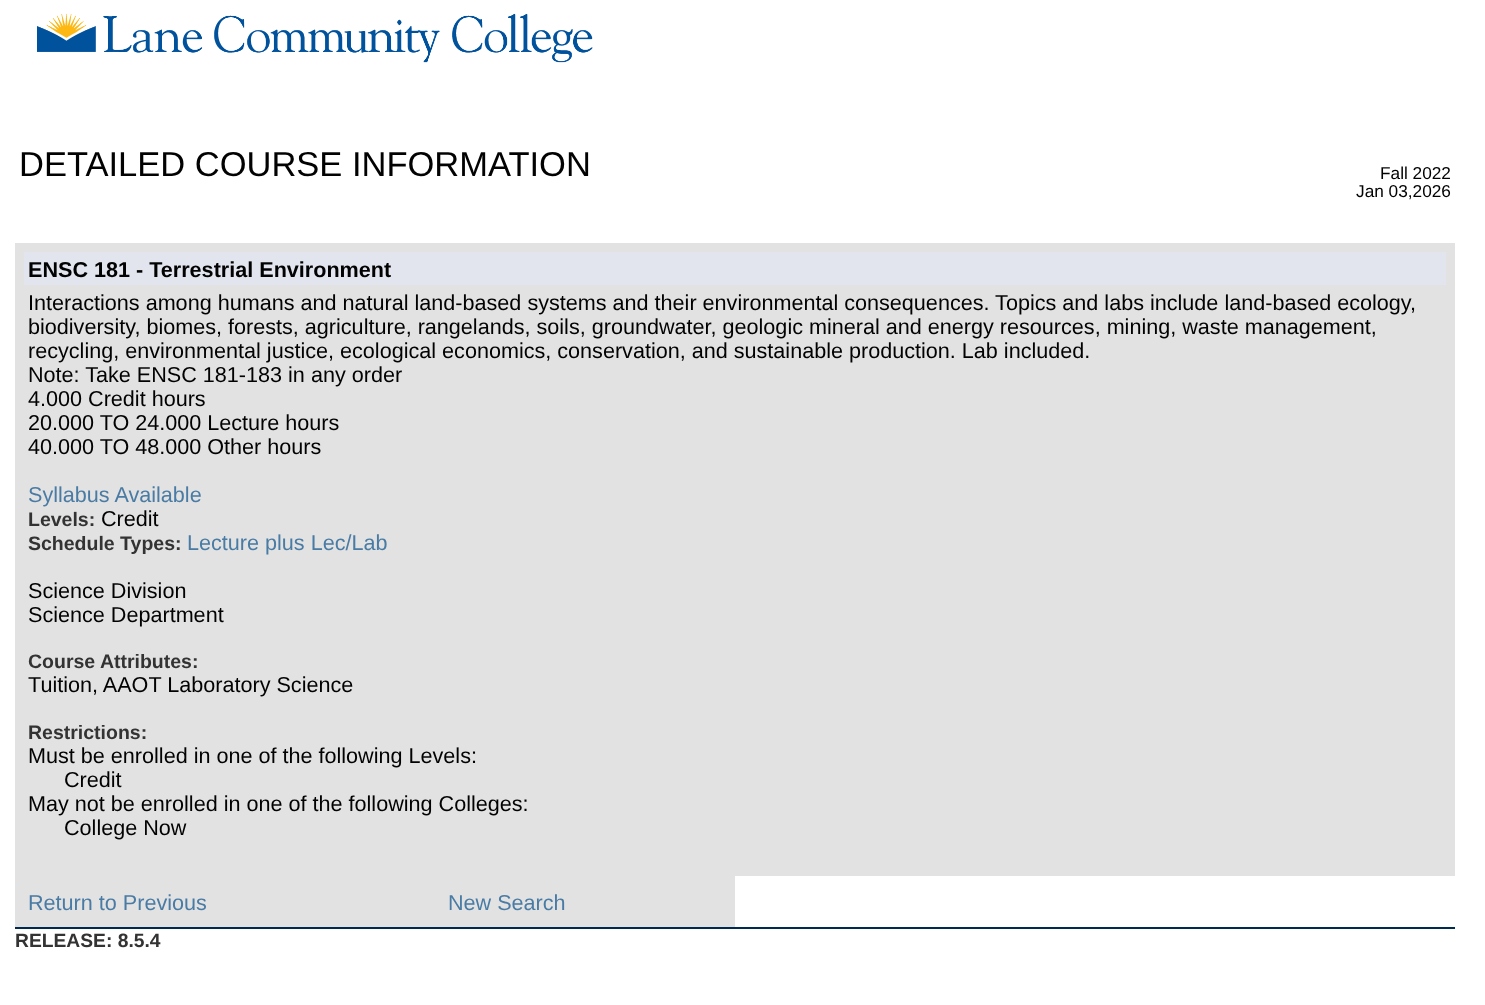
<svg xmlns="http://www.w3.org/2000/svg" width="1485" height="1005" viewBox="0 0 1485 1005">
  <style>
    .t1 { font: 34.5px Liberation Sans; fill: #020202; }
    .t2 { font: 17.25px Liberation Sans; fill: #020202; }
    .t3 { font: bold 21.6px Liberation Sans; fill: #020202; }
    .t4 { font: 21.6px Liberation Sans; fill: #020202; }
    .t5 { font: 21.6px Liberation Sans; fill: #497ba4; }
    .t6 { font: bold 19.5px Liberation Sans; fill: #333; }
    .t7 { font: bold 19.25px Liberation Sans; fill: #333; }
  </style>
  <rect width="100%" height="100%" fill="#fff"/>
  <image x="37" y="13" width="556" height="50" href="images/1.png"/>
  <text x="19" y="176" class="t1">DETAILED COURSE INFORMATION</text>
  <text x="1380" y="179" class="t2">Fall 2022</text>
  <text x="1356" y="197" class="t2">Jan 03,2026</text>
  <rect x="15" y="243" width="1440" height="633" fill="#e2e2e2"/>
  <rect x="24" y="252" width="1422" height="33" fill="#e3e5ee"/>
  <text x="28" y="277" class="t3">ENSC 181 - Terrestrial Environment</text>
  <text x="28" y="310" class="t4">Interactions among humans and natural land-based systems and their environmental consequences. Topics and labs include land-based ecology,</text>
  <text x="28" y="334" class="t4">biodiversity, biomes, forests, agriculture, rangelands, soils, groundwater, geologic mineral and energy resources, mining, waste management,</text>
  <text x="28" y="358" class="t4">recycling, environmental justice, ecological economics, conservation, and sustainable production. Lab included.</text>
  <text x="28" y="382" class="t4">Note: Take ENSC 181-183 in any order</text>
  <text x="28" y="406" class="t4">4.000 Credit hours</text>
  <text x="28" y="430" class="t4">20.000 TO 24.000 Lecture hours</text>
  <text x="28" y="454" class="t4">40.000 TO 48.000 Other hours</text>
  <text x="28" y="502" class="t5">Syllabus Available</text>
  <text x="28" y="526" class="t6">Levels:</text>
  <text x="101" y="526" class="t4">Credit</text>
  <text x="28" y="550" class="t6">Schedule Types:</text>
  <text x="187" y="550" class="t5">Lecture plus Lec/Lab</text>
  <text x="28" y="598" class="t4">Science Division</text>
  <text x="28" y="622" class="t4">Science Department</text>
  <text x="28" y="668" class="t6">Course Attributes:</text>
  <text x="28" y="692" class="t4">Tuition, AAOT Laboratory Science</text>
  <text x="28" y="739" class="t6">Restrictions:</text>
  <text x="28" y="763" class="t4">Must be enrolled in one of the following Levels:</text>
  <text x="64" y="787" class="t4">Credit</text>
  <text x="28" y="811" class="t4">May not be enrolled in one of the following Colleges:</text>
  <text x="64" y="835" class="t4">College Now</text>
  <rect x="15" y="876" width="720" height="51" fill="#e2e2e2"/>
  <text x="28" y="910" class="t5">Return to Previous</text>
  <text x="448" y="910" class="t5">New Search</text>
  <rect x="15" y="927" width="1440" height="2" fill="#002a4f"/>
  <text x="15" y="947" class="t7">RELEASE: 8.5.4</text>
</svg>
